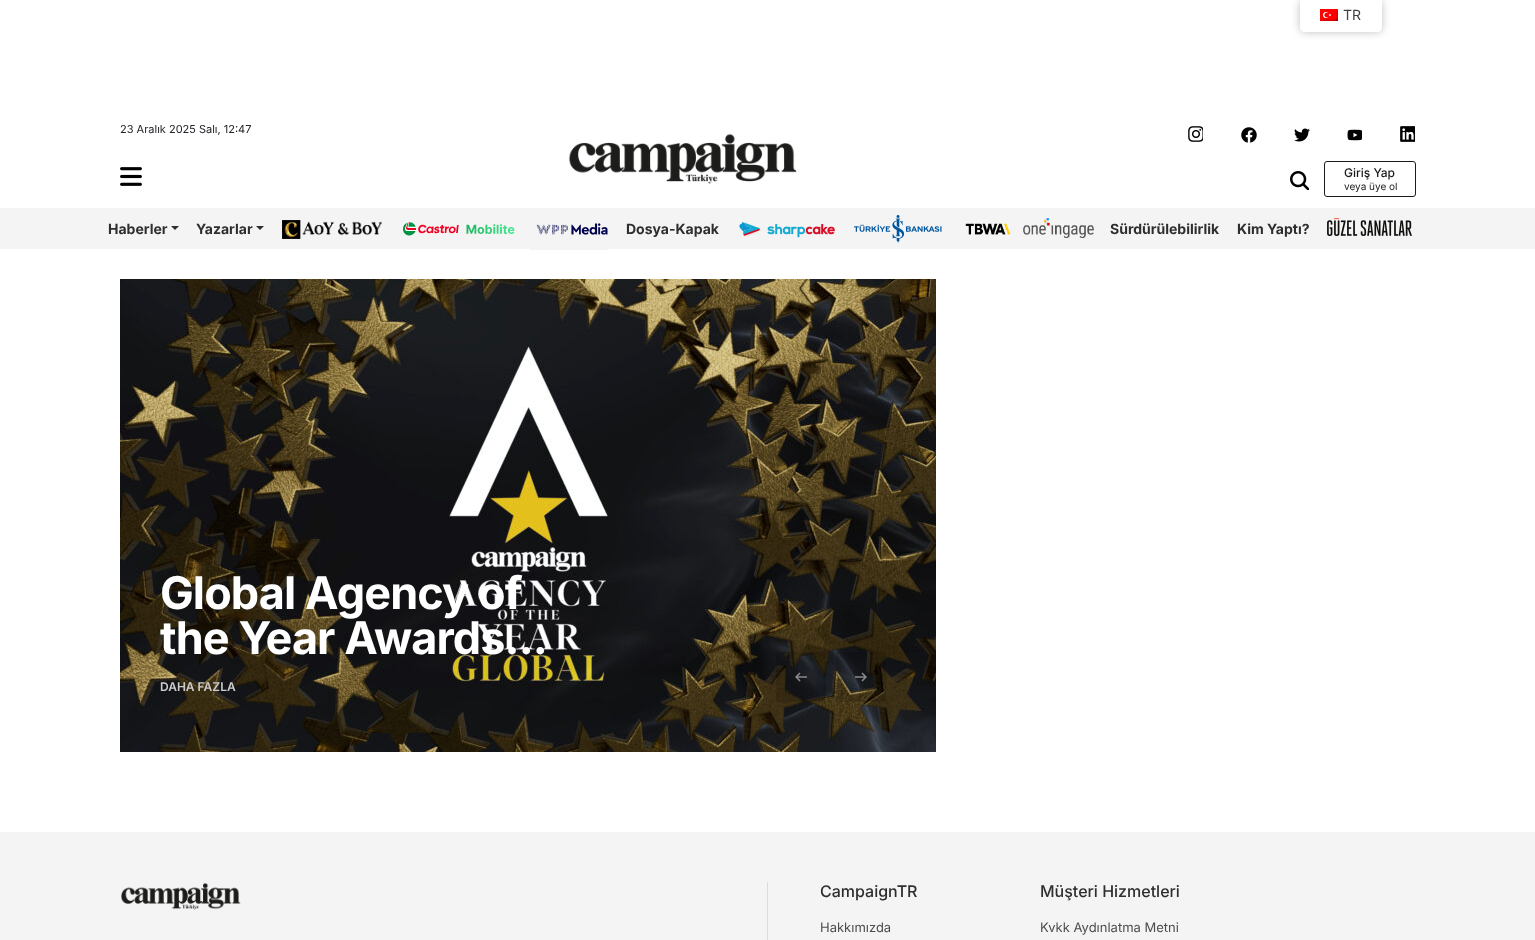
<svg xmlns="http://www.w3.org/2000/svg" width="1535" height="940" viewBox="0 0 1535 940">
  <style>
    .t1 { font: 14px Inter; fill: #404040; }
    .t2 { font: 500 16px Inter; fill: #2e2e2e; }
    .t3 { font: 13px Inter; fill: #4d4d4d; }
    .t4 { font: 11px Inter; fill: #212529; }
    .t5 { font: 500 12px Inter; fill: #1b1b1b; }
    .t6 { font: 10px Inter; fill: #1b1b1b; }
    .t7 { font: bold 14px Inter; fill: #2e2e2e; }
    .t8 { font: bold 45px Inter; letter-spacing: -0.9px; fill: #fff; }
    .t9 { font: 600 12px Inter; fill: #ccc; }
  </style>
  <rect width="100%" height="100%" fill="#fff"/>
  <rect x="0" y="832" width="1535" height="108" fill="#f4f4f4"/>
  <rect x="1300" y="0" width="82" height="32" rx="5" fill="#00000040" filter="blur(4px)"/>
  <path d="M1300 0H1382V27C1382 30 1380 32 1377 32H1305C1302 32 1300 30 1300 27Z" fill="#fff"/>
  <image x="1320" y="9" width="18" height="12" href="images/1.png"/>
  <text x="1343" y="20" class="t1">TR</text>
  <rect x="767" y="882" width="1" height="58" fill="#dcdcdc"/>
  <image x="121" y="883" width="120" height="27" href="images/2.png"/>
  <text x="820" y="897" class="t2">CampaignTR</text>
  <text x="820" y="932" class="t3">Hakkımızda</text>
  <text x="1040" y="897" class="t2">Müşteri Hizmetleri</text>
  <text x="1040" y="932" class="t3">Kvkk Aydınlatma Metni</text>
  <text x="120" y="133" class="t4">23 Aralık 2025 Salı, 12:47</text>
  <image x="120" y="167" width="22" height="19" href="images/3.png"/>
  <image x="568" y="133" width="229" height="51" href="images/4.png"/>
  <image x="1188" y="126" width="15" height="16" href="images/5.png"/>
  <image x="1241" y="127" width="16" height="16" href="images/6.png"/>
  <image x="1294" y="128" width="16" height="14" href="images/7.png"/>
  <image x="1347" y="129" width="15" height="12" href="images/8.png"/>
  <image x="1400" y="126" width="15" height="16" href="images/9.png"/>
  <image x="1290" y="171" width="19" height="19" href="images/10.png"/>
  <rect x="1324.5" y="161.5" width="91" height="35" rx="2.5" fill="none" stroke="#1b1b1b"/>
  <text x="1344" y="177" class="t5">Giriş Yap</text>
  <text x="1344" y="190" class="t6">veya üye ol</text>
  <rect x="0" y="208" width="1535" height="41" fill="#f4f4f4"/>
  <text x="108" y="234" class="t7">Haberler</text>
  <path d="M171 226H179L175 230Z" fill="#2e2e2e"/>
  <text x="196" y="234" class="t7">Yazarlar</text>
  <path d="M256 226H264L260 230Z" fill="#2e2e2e"/>
  <image x="282" y="220" width="100" height="19" href="images/11.png"/>
  <image x="403" y="222" width="112" height="14" href="images/12.png"/>
  <rect x="530" y="249" width="78" height="1" fill="#f4f4f4"/>
  <image x="536" y="223" width="72" height="12" href="images/13.png"/>
  <text x="626" y="234" class="t7">Dosya-Kapak</text>
  <image x="739" y="222" width="96" height="16" href="images/14.png"/>
  <image x="854" y="215" width="88" height="28" href="images/15.png"/>
  <image x="965" y="223" width="46" height="12" href="images/16.png"/>
  <image x="1023" y="218" width="71" height="20" href="images/17.png"/>
  <text x="1110" y="234" class="t7">Sürdürülebilirlik</text>
  <text x="1237" y="234" class="t7">Kim Yaptı?</text>
  <image x="1327" y="218" width="85" height="18" href="images/18.png"/>
  <image x="120" y="279" width="816" height="473" href="images/19.png"/>
  <text x="160" y="609" class="t8">Global Agency of</text>
  <text x="160" y="654" class="t8">the Year Awards...</text>
  <text x="160" y="691" class="t9">DAHA FAZLA</text>
  <rect x="776" y="652" width="50" height="50" fill="#00000026"/>
  <image x="795" y="672" width="12" height="10" href="images/20.png"/>
  <rect x="836" y="652" width="50" height="50" fill="#00000026"/>
  <image x="855" y="672" width="12" height="10" href="images/21.png"/>
</svg>
